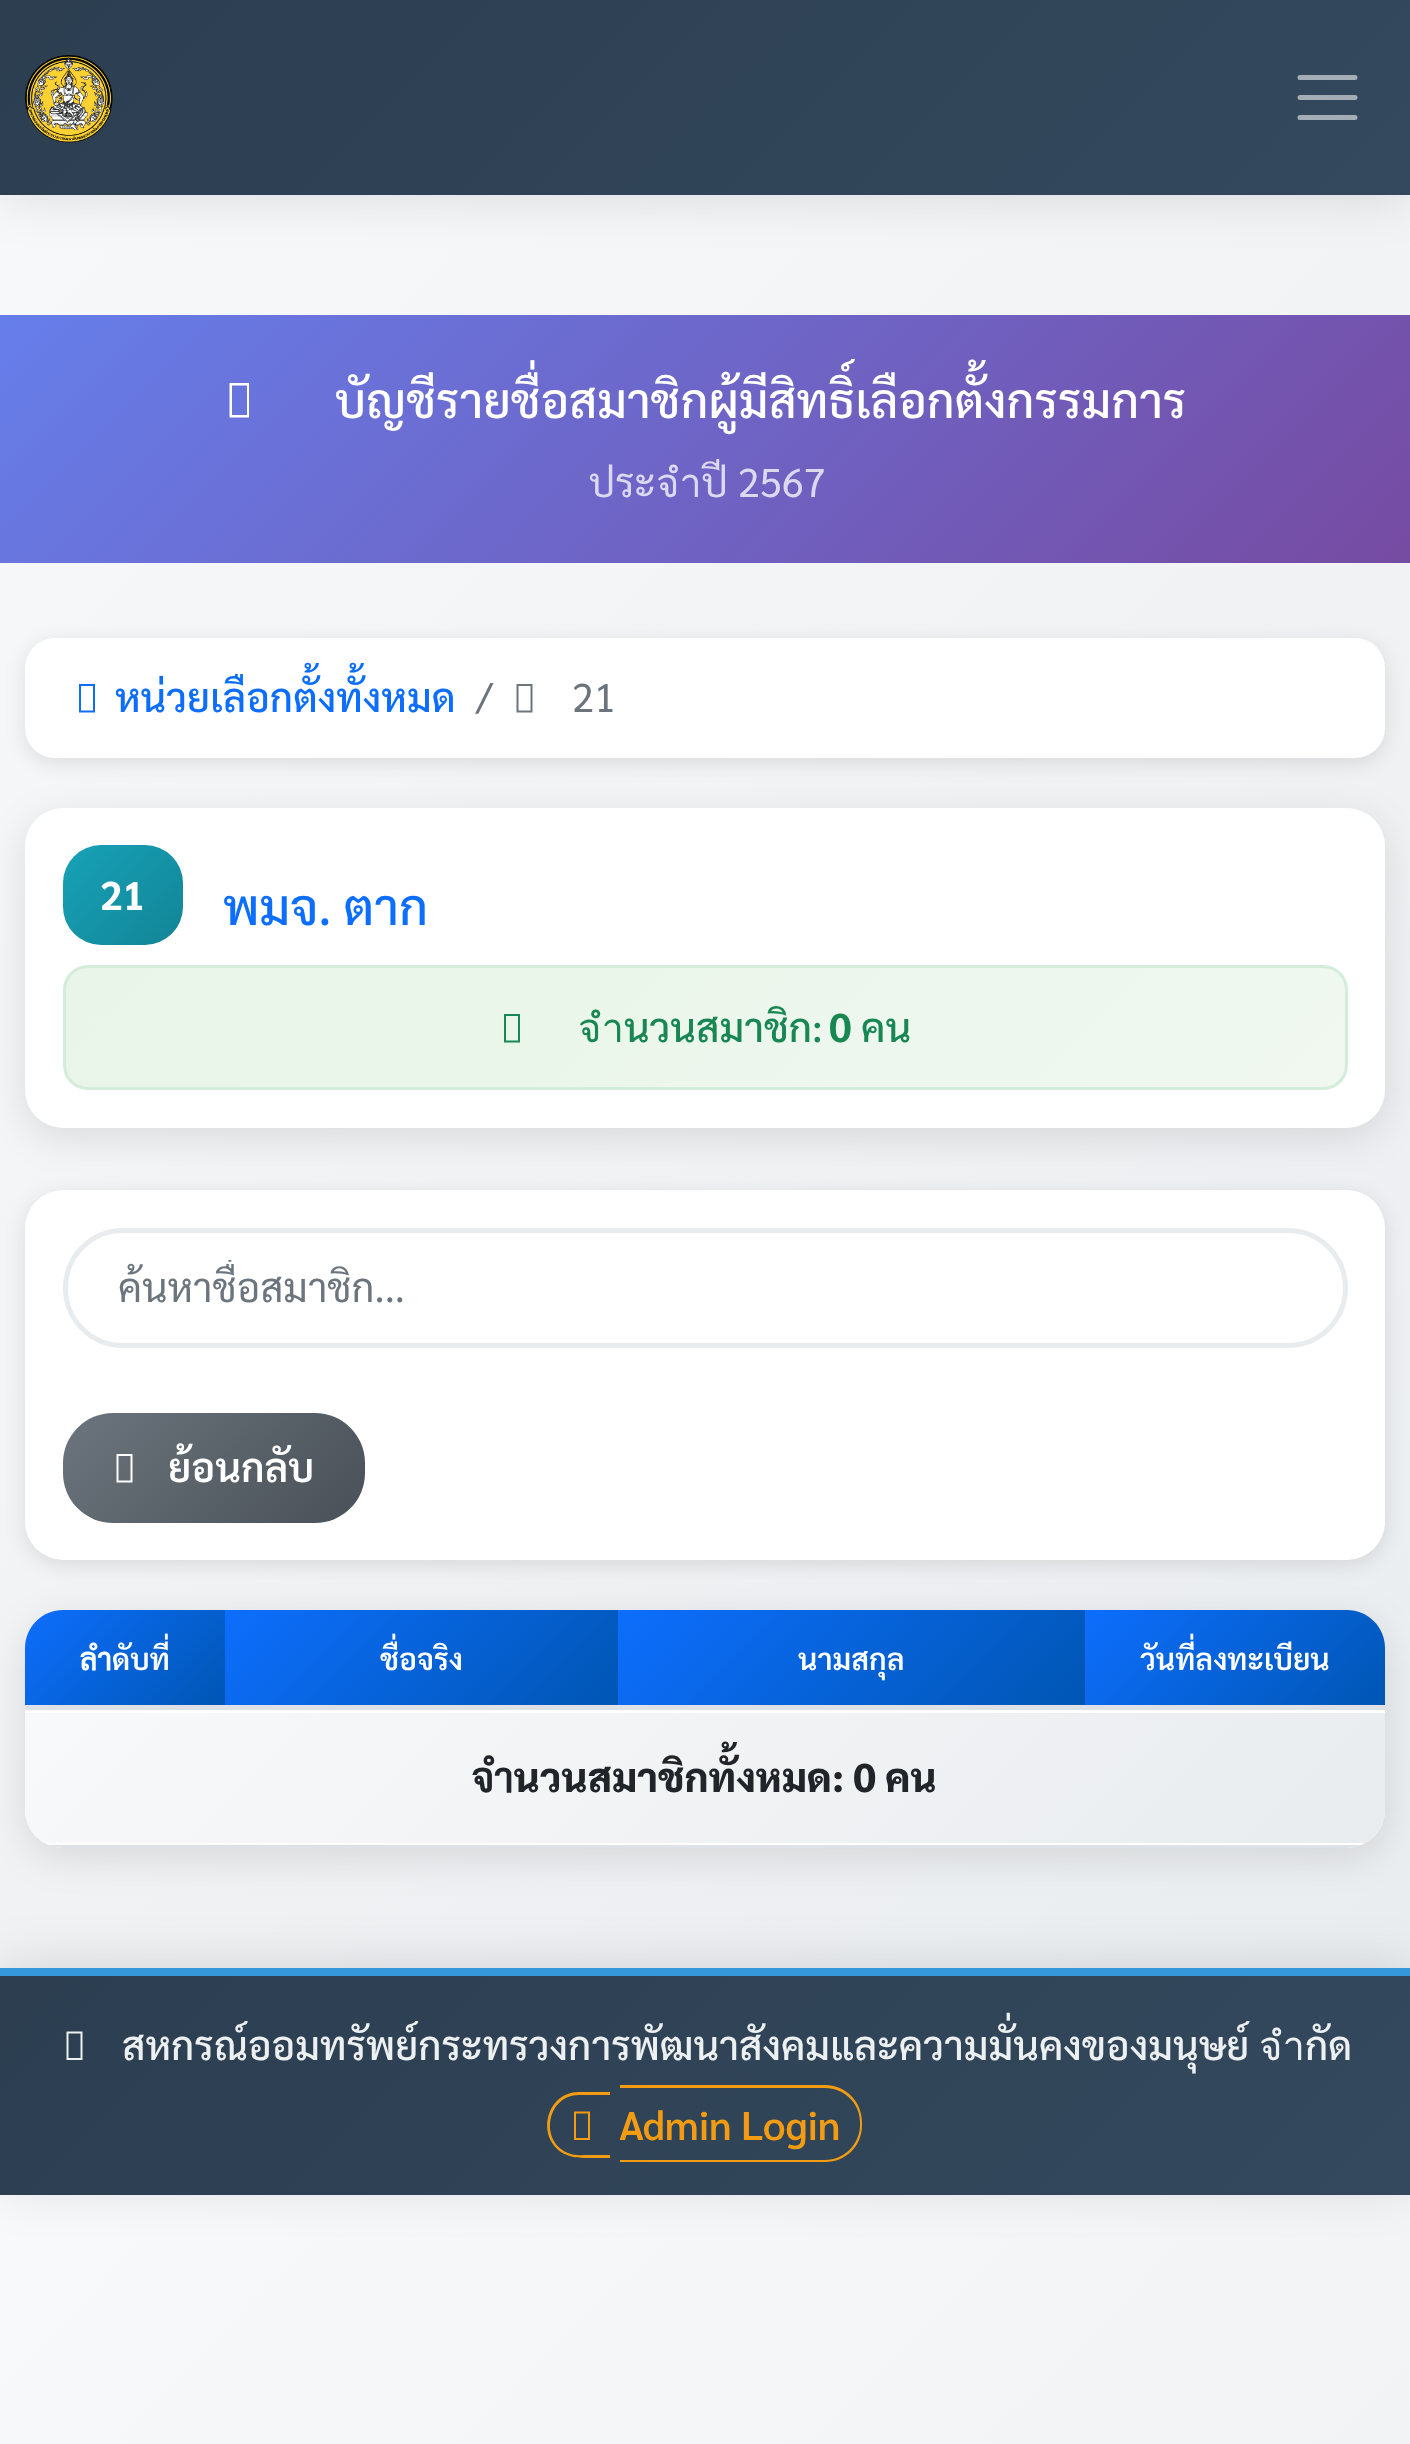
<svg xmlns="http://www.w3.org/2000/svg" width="1410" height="2444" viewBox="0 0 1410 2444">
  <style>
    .t1 { font: 500 48px Sarabun; fill: #fff; }
    .t2 { font: 40px Sarabun; fill: #dbd8f0; }
    .t3 { font: 500 40px Sarabun; fill: #0d6efd; }
    .t4 { font: 40px Sarabun; fill: #6c757d; }
    .t5 { font: bold 40px Sarabun; fill: #fff; }
    .t6 { font: 500 50px Sarabun; fill: #0d6efd; }
    .t7 { font: 500 40px Sarabun; fill: #198754; }
    .t8 { font: bold 40px Sarabun; fill: #198754; }
    .t9 { font: 600 40px Sarabun; fill: #fff; }
    .t10 { font: 600 30px Sarabun; fill: #fff; }
    .t11 { font: 800 40px Sarabun; fill: #212529; }
    .t12 { font: 500 40px Sarabun; fill: #ecf0f1; }
    .t13 { font: 600 40px Sarabun; fill: #f39c12; }
  </style>
  <defs>
    <linearGradient id="g1" gradientUnits="userSpaceOnUse" x1="-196" y1="196" x2="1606" y2="1999"><stop offset="0" stop-color="#f8f9fa"/><stop offset="1" stop-color="#e9ecef"/></linearGradient>
    <linearGradient id="g2" gradientUnits="userSpaceOnUse" x1="-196" y1="2391" x2="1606" y2="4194"><stop offset="0" stop-color="#f8f9fa"/><stop offset="1" stop-color="#e9ecef"/></linearGradient>
    <linearGradient id="g3" gradientUnits="userSpaceOnUse" x1="304" y1="-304" x2="1106" y2="499"><stop offset="0" stop-color="#2c3e50"/><stop offset="1" stop-color="#34495e"/></linearGradient>
    <linearGradient id="g4" gradientUnits="userSpaceOnUse" x1="291" y1="24" x2="1119" y2="853"><stop offset="0" stop-color="#667eea"/><stop offset="1" stop-color="#764ba2"/></linearGradient>
    <linearGradient id="g5" gradientUnits="userSpaceOnUse" x1="67" y1="840" x2="178" y2="950"><stop offset="0" stop-color="#17a2b8"/><stop offset="1" stop-color="#138496"/></linearGradient>
    <clipPath id="clip1"><rect x="63" y="965" width="1285" height="125" rx="25"/></clipPath>
    <linearGradient id="g6" gradientUnits="userSpaceOnUse" x1="355" y1="678" x2="1055" y2="1378"><stop offset="0" stop-color="#e8f5e8"/><stop offset="1" stop-color="#f0f8f0"/></linearGradient>
    <clipPath id="clip2"><rect x="118" y="1260" width="1175" height="53"/></clipPath>
    <linearGradient id="g7" gradientUnits="userSpaceOnUse" x1="111" y1="1364" x2="317" y2="1571"><stop offset="0" stop-color="#6c757d"/><stop offset="1" stop-color="#495057"/></linearGradient>
    <linearGradient id="g8" gradientUnits="userSpaceOnUse" x1="51" y1="1584" x2="199" y2="1733"><stop offset="0" stop-color="#0d6efd"/><stop offset="1" stop-color="#0056b3"/></linearGradient>
    <linearGradient id="g9" gradientUnits="userSpaceOnUse" x1="299" y1="1536" x2="544" y2="1781"><stop offset="0" stop-color="#0d6efd"/><stop offset="1" stop-color="#0056b3"/></linearGradient>
    <linearGradient id="g10" gradientUnits="userSpaceOnUse" x1="710" y1="1518" x2="993" y2="1800"><stop offset="0" stop-color="#0d6efd"/><stop offset="1" stop-color="#0056b3"/></linearGradient>
    <linearGradient id="g11" gradientUnits="userSpaceOnUse" x1="1136" y1="1559" x2="1334" y2="1758"><stop offset="0" stop-color="#0d6efd"/><stop offset="1" stop-color="#0056b3"/></linearGradient>
    <clipPath id="clip3"><rect x="25" y="1610" width="1360" height="238" rx="38"/></clipPath>
    <linearGradient id="g12" gradientUnits="userSpaceOnUse" x1="332" y1="1405" x2="1078" y2="2150"><stop offset="0" stop-color="#f8f9fa"/><stop offset="1" stop-color="#e9ecef"/></linearGradient>
    <linearGradient id="g13" gradientUnits="userSpaceOnUse" x1="297" y1="1678" x2="1113" y2="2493"><stop offset="0" stop-color="#2c3e50"/><stop offset="1" stop-color="#34495e"/></linearGradient>
  </defs>
  <rect width="100%" height="100%" fill="#fff"/>
  <rect x="0" y="195" width="1410" height="1773" fill="url(#g1)"/>
  <rect x="0" y="2195" width="1410" height="249" fill="url(#g2)"/>
  <rect x="0" y="5" width="1410" height="195" fill="#0000001a" filter="blur(25px)"/>
  <rect x="0" y="0" width="1410" height="195" fill="url(#g3)"/>
  <image x="25" y="55" width="88" height="88" href="images/1.png"/>
  <path d="M1300 77.5H1355M1300 97.5H1355M1300 117.5H1355" fill="none" stroke="#a3adb6" stroke-width="5" stroke-linecap="round"/>
  <rect x="0" y="315" width="1410" height="248" fill="url(#g4)"/>
  <path d="M229.5 417.5V383H249V417.5ZM232 415H247V385.5H232Z" fill="#fff"/>
  <text x="335" y="418" class="t1">บัญชีรายชื่อสมาชิกผู้มีสิทธิ์เลือกตั้งกรรมการ</text>
  <text x="589" y="497" class="t2">ประจำปี 2567</text>
  <rect x="25" y="643" width="1360" height="120" rx="30" fill="#0000001a" filter="blur(10px)"/>
  <rect x="25" y="638" width="1360" height="120" rx="30" fill="#fff"/>
  <path d="M79 712.5V684H95V712.5ZM81 710.5H93V686H81Z" fill="#0d6efd"/>
  <text x="115" y="712" class="t3">หน่วยเลือกตั้งทั้งหมด</text>
  <text x="476" y="712" class="t4">/</text>
  <path d="M516.5 712.5V684H532.5V712.5ZM518.5 710.5H530.5V686H518.5Z" fill="#6c757d"/>
  <text x="572" y="712" class="t4">21</text>
  <rect x="25" y="818" width="1360" height="320" rx="38" fill="#0000001a" filter="blur(19px)"/>
  <rect x="25" y="808" width="1360" height="320" rx="38" fill="#fff"/>
  <rect x="63" y="845" width="120" height="100" rx="38" fill="url(#g5)"/>
  <text x="100" y="910" class="t5">21</text>
  <text x="223" y="925" class="t6">พมจ. ตาก</text>
  <g clip-path="url(#clip1)">
    <rect x="65" y="968" width="1280" height="120" fill="url(#g6)"/>
  </g>
  <rect x="64.5" y="966.5" width="1282" height="122" rx="23.5" fill="none" stroke="#d4edda" stroke-width="3"/>
  <path d="M504 1042.5V1014H520V1042.5ZM506 1040.5H518V1016H506Z" fill="#198754"/>
  <text x="578" y="1042" class="t7">จำนวนสมาชิก:</text>
  <text x="829" y="1042" class="t8">0</text>
  <text x="861" y="1042" class="t7">คน</text>
  <rect x="25" y="1195" width="1360" height="370" rx="38" fill="#0000001a" filter="blur(10px)"/>
  <rect x="25" y="1190" width="1360" height="370" rx="38" fill="#fff"/>
  <rect x="65.5" y="1230.5" width="1280" height="115" rx="57.5" fill="none" stroke="#e9ecef" stroke-width="5"/>
  <g clip-path="url(#clip2)">
    <text x="118" y="1302" class="t4">ค้นหาชื่อสมาชิก...</text>
  </g>
  <rect x="63" y="1413" width="302" height="110" rx="50" fill="url(#g7)"/>
  <path d="M116.5 1482.5V1454H132.5V1482.5ZM118.5 1480.5H130.5V1456H118.5Z" fill="#fff"/>
  <text x="168" y="1482" class="t9">ย้อนกลับ</text>
  <rect x="25" y="1620" width="1360" height="238" rx="38" fill="#0000001a" filter="blur(19px)"/>
  <rect x="25" y="1610" width="1360" height="238" rx="38" fill="#fff"/>
  <path d="M63 1610H225V1708H25V1648C25 1627 42 1610 63 1610Z" fill="url(#g8)"/>
  <text x="80" y="1670" class="t10">ลำดับที่</text>
  <rect x="225" y="1610" width="393" height="95" fill="url(#g9)"/>
  <text x="380" y="1670" class="t10">ชื่อจริง</text>
  <rect x="618" y="1610" width="467" height="95" fill="url(#g10)"/>
  <text x="798" y="1670" class="t10">นามสกุล</text>
  <path d="M1085 1610H1347C1368 1610 1385 1627 1385 1648V1708H1085Z" fill="url(#g11)"/>
  <text x="1140" y="1670" class="t10">วันที่ลงทะเบียน</text>
  <g clip-path="url(#clip3)">
    <rect x="25" y="1713" width="1360" height="130" fill="url(#g12)"/>
    <rect x="48" y="1845" width="1314" height="3" fill="#dee2e6"/>
  </g>
  <rect x="25" y="1705" width="1360" height="5" fill="#dee2e6"/>
  <text x="472" y="1792" class="t11">จำนวนสมาชิกทั้งหมด: 0 คน</text>
  <rect x="0" y="1963" width="1410" height="227" fill="#0000001a" filter="blur(25px)"/>
  <rect x="0" y="1976" width="1410" height="219" fill="url(#g13)"/>
  <rect x="0" y="1968" width="1410" height="8" fill="#3498db"/>
  <path d="M66.5 2060V2031.5H82.5V2060ZM68.5 2058H80.5V2033.5H68.5Z" fill="#ecf0f1"/>
  <text x="122" y="2060" class="t12">สหกรณ์ออมทรัพย์กระทรวงการพัฒนาสังคมและความมั่นคงของมนุษย์ จำกัด</text>
  <path d="M579 2092H610V2158H589C582 2158 574 2158 567 2155C535 2142 544 2092 579 2092ZM579 2095H610V2155H589C582 2155 574 2156 568 2153C539 2141 547 2095 579 2095Z" fill="#f39c12" fill-rule="evenodd"/>
  <path d="M620 2085H825C846 2085 862 2102 862 2122V2125C862 2146 846 2162 825 2162H620ZM620 2088H825C844 2088 860 2103 860 2122V2125C860 2144 844 2160 825 2160H620Z" fill="#f39c12" fill-rule="evenodd"/>
  <path d="M574 2140V2111.5H590V2140ZM576 2138H588V2113.5H576Z" fill="#f39c12"/>
  <text x="619" y="2140" class="t13">Admin Login</text>
</svg>
